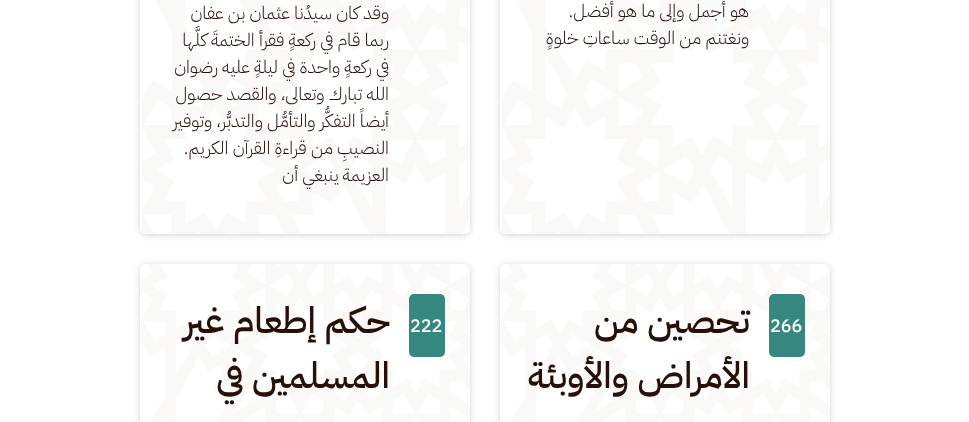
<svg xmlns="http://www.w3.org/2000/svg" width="969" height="422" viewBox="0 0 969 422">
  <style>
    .t1 { font: 300 18px IBM Plex Sans Arabic; direction: rtl; fill: #280f07; }
    .t2 { font: 500 18px IBM Plex Sans Arabic; fill: #fff; }
    .t3 { font: 500 36.5px IBM Plex Sans Arabic; direction: rtl; fill: #280f07; }
  </style>
  <rect width="100%" height="100%" fill="#fff"/>
  <rect x="501" y="-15" width="328" height="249" rx="4" fill="#c2c2c2" filter="blur(3.5px)"/>
  <rect x="500" y="-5" width="330" height="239" rx="5" fill="#fff"/>
  <image x="502" y="0" width="328" height="234" href="images/1.png"/>
  <text x="749" y="17" class="t1">هو أجمل وإلى ما هو أفضل.</text>
  <text x="749" y="44" class="t1">ونغتنم من الوقت ساعاتِ خلوةٍ</text>
  <rect x="141" y="-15" width="328" height="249" rx="4" fill="#c2c2c2" filter="blur(3.5px)"/>
  <rect x="140" y="-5" width="330" height="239" rx="5" fill="#fff"/>
  <image x="142" y="0" width="328" height="234" href="images/2.png"/>
  <text x="389" y="19" class="t1">وقد كان سيدُنا عثمان بن عفان</text>
  <text x="389" y="46" class="t1">ربما قام في ركعةٍ فقرأ الختمةَ كلَّها</text>
  <text x="389" y="73" class="t1">في ركعةٍ واحدة في ليلةٍ عليه رضوان</text>
  <text x="389" y="100" class="t1">الله تبارك وتعالى، والقصد حصول</text>
  <text x="389" y="127" class="t1">أيضاً التفكُّر والتأمُّل والتدبُّر، وتوفير</text>
  <text x="389" y="154" class="t1">النصيبِ من قراءةِ القرآن الكريم.</text>
  <text x="389" y="181" class="t1">العزيمة ينبغي أن</text>
  <rect x="501" y="266" width="328" height="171" rx="4" fill="#c2c2c2" filter="blur(3.5px)"/>
  <rect x="500" y="264" width="330" height="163" rx="5" fill="#fff"/>
  <image x="501" y="264" width="329" height="158" href="images/3.png"/>
  <rect x="769" y="294" width="36" height="63" rx="5" fill="#368780"/>
  <text x="770" y="332" class="t2">266</text>
  <text x="750" y="333" class="t3">تحصين من</text>
  <text x="750" y="388" class="t3">الأمراض والأوبئة</text>
  <rect x="141" y="266" width="328" height="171" rx="4" fill="#c2c2c2" filter="blur(3.5px)"/>
  <rect x="140" y="264" width="330" height="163" rx="5" fill="#fff"/>
  <image x="141" y="264" width="329" height="158" href="images/4.png"/>
  <rect x="409" y="294" width="36" height="63" rx="5" fill="#368780"/>
  <text x="410" y="332" class="t2">222</text>
  <text x="390" y="333" class="t3">حكم إطعام غير</text>
  <text x="390" y="388" class="t3">المسلمين في</text>
</svg>
